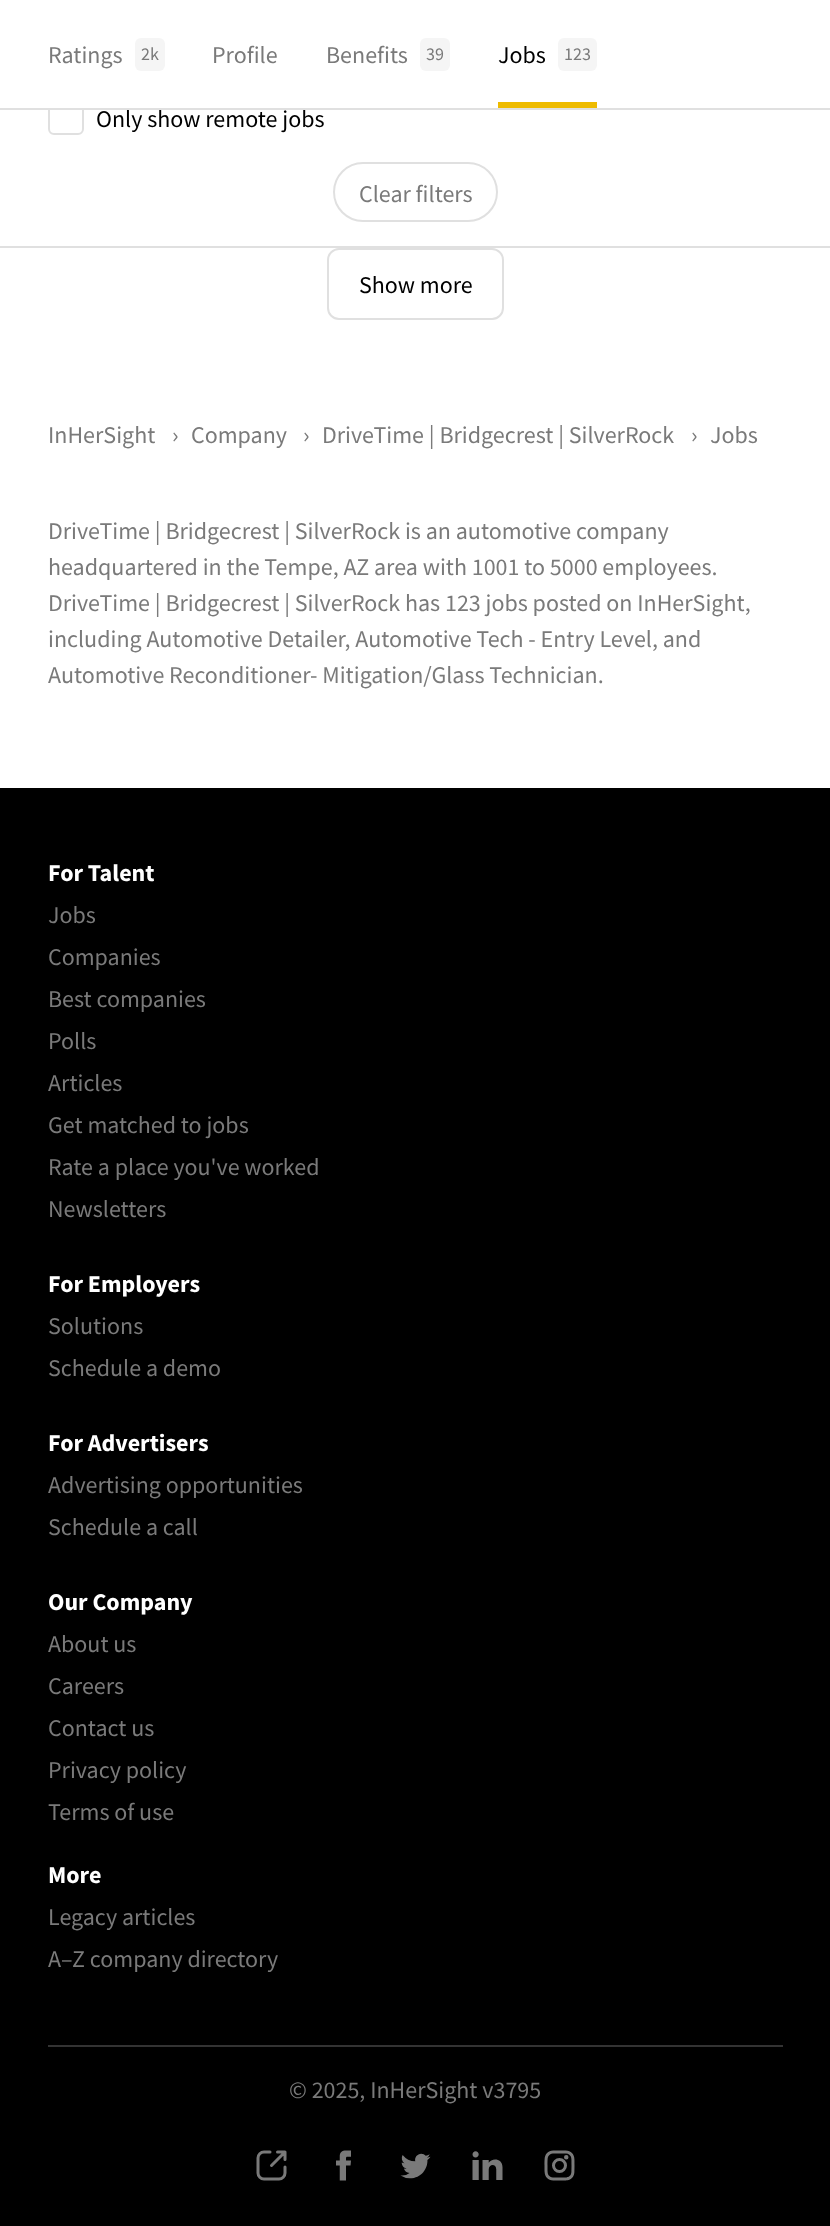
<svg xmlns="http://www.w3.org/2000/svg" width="830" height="2226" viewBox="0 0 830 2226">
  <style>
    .t1 { font: 24px Source Sans Pro; fill: #000; }
    .t2 { font: 24px Source Sans Pro; fill: #7a7a7a; }
    .t3 { font: 18px Source Sans Pro; fill: #7a7a7a; }
    .t4 { font: bold 24px Source Sans Pro; fill: #fff; }
  </style>
  <rect width="100%" height="100%" fill="#fff"/>
  <rect x="49" y="100" width="34" height="34" rx="5" fill="none" stroke="#e0e0e0" stroke-width="2"/>
  <rect x="48" y="99" width="36" height="9" fill="#fff"/>
  <text x="96" y="127" class="t1">Only show remote jobs</text>
  <rect x="0" y="108" width="830" height="2" fill="#e0e0e0"/>
  <text x="48" y="63" class="t2">Ratings</text>
  <rect x="135" y="38" width="30" height="33" rx="6" fill="#f5f5f5"/>
  <text x="141" y="60" class="t3">2k</text>
  <text x="212" y="63" class="t2">Profile</text>
  <text x="326" y="63" class="t2">Benefits</text>
  <rect x="420" y="38" width="30" height="33" rx="6" fill="#f5f5f5"/>
  <text x="426" y="60" class="t3">39</text>
  <rect x="498" y="102" width="99" height="6" fill="#eb0"/>
  <text x="498" y="63" class="t1">Jobs</text>
  <rect x="558" y="38" width="39" height="33" rx="6" fill="#f5f5f5"/>
  <text x="564" y="60" class="t3">123</text>
  <rect x="0" y="246" width="830" height="2" fill="#e0e0e0"/>
  <rect x="334" y="163" width="163" height="58" rx="29" fill="none" stroke="#e0e0e0" stroke-width="2"/>
  <text x="359" y="202" class="t2">Clear filters</text>
  <rect x="328" y="249" width="175" height="70" rx="11" fill="none" stroke="#e0e0e0" stroke-width="2"/>
  <text x="359" y="293" class="t1">Show more</text>
  <text x="48" y="443" class="t2">InHerSight</text>
  <text x="172" y="443" class="t2">›</text>
  <text x="191" y="443" class="t2">Company</text>
  <text x="303" y="443" class="t2">›</text>
  <text x="322" y="443" class="t2">DriveTime | Bridgecrest | SilverRock</text>
  <text x="691" y="443" class="t2">›</text>
  <text x="710" y="443" class="t2">Jobs</text>
  <text x="48" y="539" class="t2">DriveTime | Bridgecrest | SilverRock is an automotive company</text>
  <text x="48" y="575" class="t2">headquartered in the Tempe, AZ area with 1001 to 5000 employees.</text>
  <text x="48" y="611" class="t2">DriveTime | Bridgecrest | SilverRock has 123 jobs posted on InHerSight,</text>
  <text x="48" y="647" class="t2">including Automotive Detailer, Automotive Tech - Entry Level, and</text>
  <text x="48" y="683" class="t2">Automotive Reconditioner- Mitigation/Glass Technician.</text>
  <rect x="0" y="788" width="830" height="1438" fill="#000"/>
  <text x="48" y="881" class="t4">For Talent</text>
  <text x="48" y="923" class="t2">Jobs</text>
  <text x="48" y="965" class="t2">Companies</text>
  <text x="48" y="1007" class="t2">Best companies</text>
  <text x="48" y="1049" class="t2">Polls</text>
  <text x="48" y="1091" class="t2">Articles</text>
  <text x="48" y="1133" class="t2">Get matched to jobs</text>
  <text x="48" y="1175" class="t2">Rate a place you've worked</text>
  <text x="48" y="1217" class="t2">Newsletters</text>
  <text x="48" y="1292" class="t4">For Employers</text>
  <text x="48" y="1334" class="t2">Solutions</text>
  <text x="48" y="1376" class="t2">Schedule a demo</text>
  <text x="48" y="1451" class="t4">For Advertisers</text>
  <text x="48" y="1493" class="t2">Advertising opportunities</text>
  <text x="48" y="1535" class="t2">Schedule a call</text>
  <text x="48" y="1610" class="t4">Our Company</text>
  <text x="48" y="1652" class="t2">About us</text>
  <text x="48" y="1694" class="t2">Careers</text>
  <text x="48" y="1736" class="t2">Contact us</text>
  <text x="48" y="1778" class="t2">Privacy policy</text>
  <text x="48" y="1820" class="t2">Terms of use</text>
  <text x="48" y="1883" class="t4">More</text>
  <text x="48" y="1925" class="t2">Legacy articles</text>
  <text x="48" y="1967" class="t2">A–Z company directory</text>
  <rect x="48" y="2045" width="735" height="2" fill="#333"/>
  <text x="289" y="2098" class="t2">© 2025, InHerSight v3795</text>
  <image x="256" y="2150" width="31" height="31" href="images/1.png"/>
  <image x="336" y="2150" width="15" height="31" href="images/2.png"/>
  <image x="400" y="2153" width="31" height="26" href="images/3.png"/>
  <image x="472" y="2151" width="31" height="29" href="images/4.png"/>
  <image x="544" y="2150" width="31" height="31" href="images/5.png"/>
</svg>
